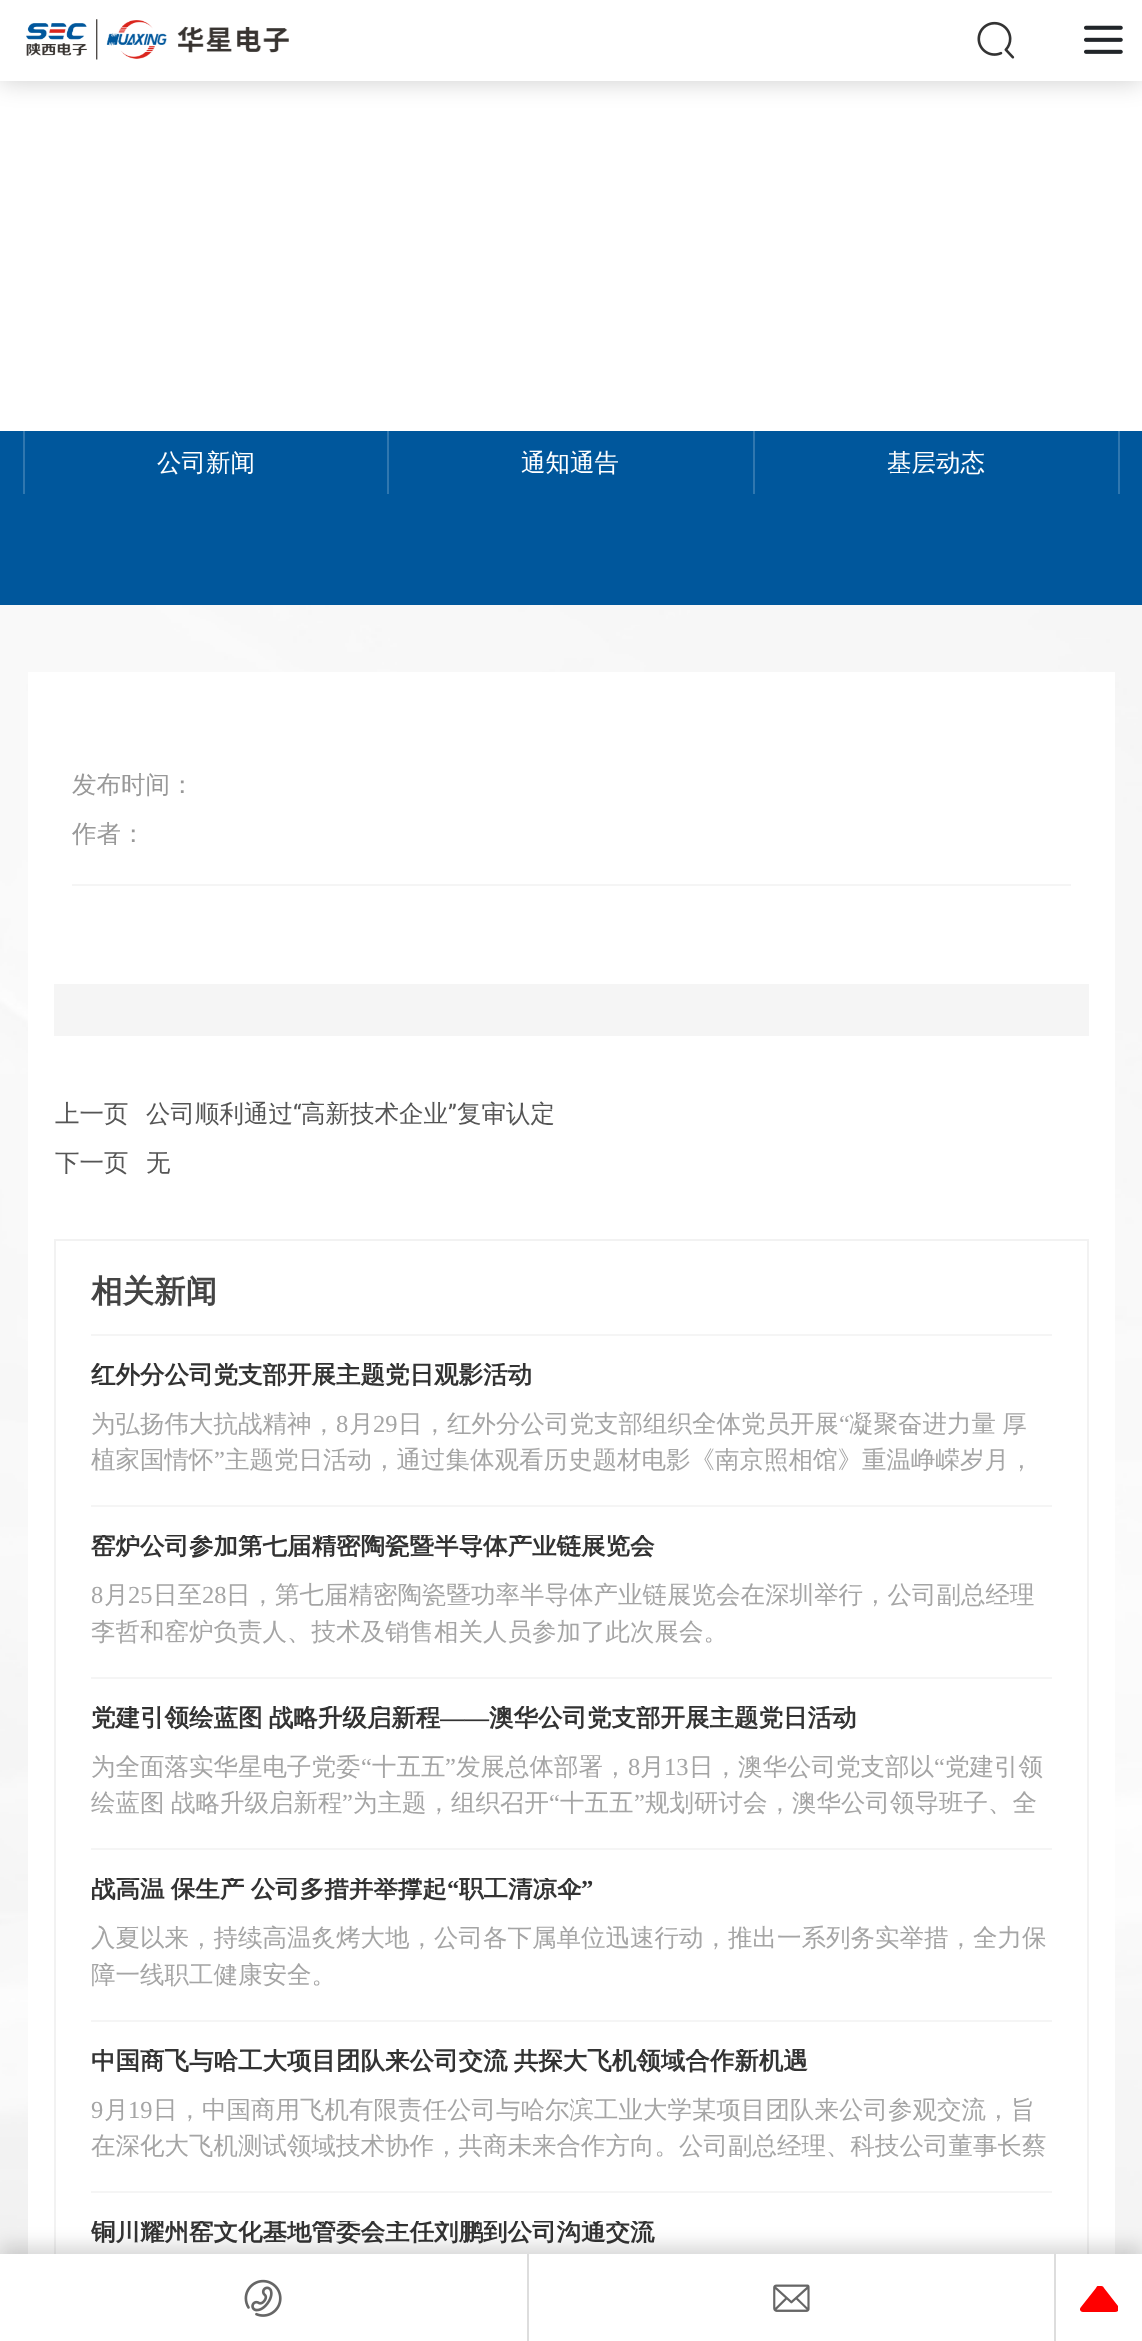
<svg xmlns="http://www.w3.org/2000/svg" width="1142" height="2341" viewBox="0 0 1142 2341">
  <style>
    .t1 { font: 500 24.5px WenQuanYi Zen Hei; fill: #fff; }
    .t2 { font: 500 24.5px WenQuanYi Zen Hei; fill: #999; }
    .t3 { font: 500 24.5px WenQuanYi Zen Hei; fill: #555; }
    .t4 { font: 24.5px Roboto; fill: #555; }
    .t5 { font: bold 31.5px WenQuanYi Zen Hei; fill: #444; }
    .t6 { font: bold 24.5px WenQuanYi Zen Hei; fill: #333; }
    .t7 { font: 500 24.5px WenQuanYi Zen Hei; fill: #a5a5a5; }
    .t8 { font: 24.5px Liberation Serif; fill: #a5a5a5; }
    .t9 { font: bold 24.5px Liberation Serif; fill: #333; }
  </style>
  <defs>
    <clipPath id="clip1"><rect x="91" y="1363" width="961" height="25"/></clipPath>
    <clipPath id="clip2"><rect x="91" y="1535" width="961" height="24"/></clipPath>
    <clipPath id="clip3"><rect x="91" y="1706" width="961" height="25"/></clipPath>
    <clipPath id="clip4"><rect x="91" y="1878" width="961" height="24"/></clipPath>
    <clipPath id="clip5"><rect x="91" y="2049" width="961" height="25"/></clipPath>
    <clipPath id="clip6"><rect x="91" y="2221" width="961" height="24"/></clipPath>
    <clipPath id="clip7"><rect x="1080" y="2286" width="38" height="26"/></clipPath>
  </defs>
  <rect width="100%" height="100%" fill="#fff"/>
  <rect x="0" y="0" width="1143" height="81" fill="#00000033" filter="blur(13px)"/>
  <rect x="0" y="0" width="1142" height="81" fill="#fff"/>
  <image x="26" y="19" width="263" height="41" href="images/1.png"/>
  <image x="977" y="21" width="38" height="38" href="images/2.png"/>
  <image x="1084" y="25" width="39" height="29" href="images/3.png"/>
  <rect x="0" y="431" width="1142" height="174" fill="#00579c"/>
  <rect x="387" y="431" width="2" height="63" fill="#3077af"/>
  <rect x="23" y="431" width="2" height="63" fill="#3077af"/>
  <text x="157" y="471" class="t1">公司新闻</text>
  <rect x="753" y="431" width="2" height="63" fill="#3077af"/>
  <text x="521" y="471" class="t1">通知通告</text>
  <rect x="1118" y="431" width="2" height="63" fill="#3077af"/>
  <text x="887" y="471" class="t1">基层动态</text>
  <image x="0" y="605" width="1142" height="1649" href="images/4.png"/>
  <rect x="28" y="672" width="1087" height="1582" fill="#fff"/>
  <text x="72" y="793" class="t2">发布时间：</text>
  <text x="72" y="842" class="t2">作者：</text>
  <rect x="72" y="884" width="999" height="2" fill="#f5f5f5"/>
  <rect x="54" y="984" width="1035" height="52" fill="#f5f5f5"/>
  <text x="55" y="1122" class="t3">上一页</text>
  <text x="146" y="1122" class="t3">公司顺利通过</text>
  <text x="293" y="1122" class="t4">“</text>
  <text x="301" y="1122" class="t3">高新技术企业</text>
  <text x="448" y="1122" class="t4">”</text>
  <text x="457" y="1122" class="t3">复审认定</text>
  <text x="55" y="1171" class="t3">下一页</text>
  <text x="146" y="1171" class="t3">无</text>
  <rect x="55" y="1240" width="1033" height="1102" fill="none" stroke="#f2f2f2" stroke-width="2"/>
  <text x="91" y="1302" class="t5">相关新闻</text>
  <rect x="91" y="1334" width="961" height="2" fill="#f5f5f5"/>
  <g clip-path="url(#clip1)">
    <text x="91" y="1383" class="t6">红外分公司党支部开展主题党日观影活动</text>
  </g>
  <text x="91" y="1432" class="t7">为弘扬伟大抗战精神，</text>
  <text x="336" y="1432" class="t8">8</text>
  <text x="349" y="1432" class="t7">月</text>
  <text x="373" y="1432" class="t8">29</text>
  <text x="398" y="1432" class="t7">日，红外分公司党支部组织全体党员开展</text>
  <text x="839" y="1432" class="t8">“</text>
  <text x="849" y="1432" word-spacing="-1" class="t7">凝聚奋进力量 厚</text>
  <text x="91" y="1468" class="t7">植家国情怀</text>
  <text x="214" y="1468" class="t8">”</text>
  <text x="225" y="1468" class="t7">主题党日活动，通过集体观看历史题材电影《南京照相馆》重温峥嵘岁月，</text>
  <rect x="91" y="1505" width="961" height="2" fill="#f5f5f5"/>
  <g clip-path="url(#clip2)">
    <text x="91" y="1554" class="t6">窑炉公司参加第七届精密陶瓷暨半导体产业链展览会</text>
  </g>
  <text x="91" y="1603" class="t8">8</text>
  <text x="104" y="1603" class="t7">月</text>
  <text x="128" y="1603" class="t8">25</text>
  <text x="153" y="1603" class="t7">日至</text>
  <text x="202" y="1603" class="t8">28</text>
  <text x="226" y="1603" class="t7">日，第七届精密陶瓷暨功率半导体产业链展览会在深圳举行，公司副总经理</text>
  <text x="91" y="1640" class="t7">李哲和窑炉负责人、技术及销售相关人员参加了此次展会。</text>
  <rect x="91" y="1677" width="961" height="2" fill="#f5f5f5"/>
  <g clip-path="url(#clip3)">
    <text x="91" y="1726" word-spacing="-1" class="t6">党建引领绘蓝图 战略升级启新程</text>
  </g>
  <text x="440" y="1726" class="t9">——</text>
  <g clip-path="url(#clip3)">
    <text x="489" y="1726" class="t6">澳华公司党支部开展主题党日活动</text>
  </g>
  <text x="91" y="1775" class="t7">为全面落实华星电子党委</text>
  <text x="361" y="1775" class="t8">“</text>
  <text x="372" y="1775" class="t7">十五五</text>
  <text x="445" y="1775" class="t8">”</text>
  <text x="456" y="1775" class="t7">发展总体部署，</text>
  <text x="628" y="1775" class="t8">8</text>
  <text x="640" y="1775" class="t7">月</text>
  <text x="664" y="1775" class="t8">13</text>
  <text x="689" y="1775" class="t7">日，澳华公司党支部以</text>
  <text x="934" y="1775" class="t8">“</text>
  <text x="945" y="1775" class="t7">党建引领</text>
  <text x="91" y="1811" class="t7">绘蓝图</text>
  <text x="171" y="1811" class="t7">战略升级启新程</text>
  <text x="342" y="1811" class="t8">”</text>
  <text x="353" y="1811" class="t7">为主题，组织召开</text>
  <text x="549" y="1811" class="t8">“</text>
  <text x="560" y="1811" class="t7">十五五</text>
  <text x="634" y="1811" class="t8">”</text>
  <text x="645" y="1811" class="t7">规划研讨会，澳华公司领导班子、全</text>
  <rect x="91" y="1848" width="961" height="2" fill="#f5f5f5"/>
  <g clip-path="url(#clip4)">
    <text x="91" y="1897" word-spacing="-1" class="t6">战高温 保生产 公司多措并举撑起</text>
  </g>
  <text x="447" y="1897" class="t9">“</text>
  <g clip-path="url(#clip4)">
    <text x="459" y="1897" class="t6">职工清凉伞</text>
  </g>
  <text x="581" y="1897" class="t9">”</text>
  <text x="91" y="1946" class="t7">入夏以来，持续高温炙烤大地，公司各下属单位迅速行动，推出一系列务实举措，全力保</text>
  <text x="91" y="1983" class="t7">障一线职工健康安全。</text>
  <rect x="91" y="2020" width="961" height="2" fill="#f5f5f5"/>
  <g clip-path="url(#clip5)">
    <text x="91" y="2069" word-spacing="-1" class="t6">中国商飞与哈工大项目团队来公司交流 共探大飞机领域合作新机遇</text>
  </g>
  <text x="91" y="2118" class="t8">9</text>
  <text x="104" y="2118" class="t7">月</text>
  <text x="128" y="2118" class="t8">19</text>
  <text x="153" y="2118" class="t7">日，中国商用飞机有限责任公司与哈尔滨工业大学某项目团队来公司参观交流，旨</text>
  <text x="91" y="2154" class="t7">在深化大飞机测试领域技术协作，共商未来合作方向。公司副总经理、科技公司董事长蔡</text>
  <rect x="91" y="2191" width="961" height="2" fill="#f5f5f5"/>
  <g clip-path="url(#clip6)">
    <text x="91" y="2240" class="t6">铜川耀州窑文化基地管委会主任刘鹏到公司沟通交流</text>
  </g>
  <rect x="0" y="2245" width="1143" height="88" fill="#00000026" filter="blur(9px)"/>
  <rect x="0" y="2254" width="1142" height="87" fill="#fff"/>
  <rect x="527" y="2254" width="2" height="87" fill="#ddd"/>
  <image x="244" y="2279" width="38" height="38" href="images/5.png"/>
  <rect x="1054" y="2254" width="2" height="87" fill="#ddd"/>
  <image x="773" y="2284" width="37" height="28" href="images/6.png"/>
  <g clip-path="url(#clip7)">
    <path d="M1096 2288C1097 2286 1098 2285 1100 2286C1102 2286 1103 2286 1104 2288L1118 2306C1120 2309 1119 2312 1115 2312H1083C1080 2312 1079 2309 1081 2307Z" fill="#f00"/>
  </g>
</svg>
